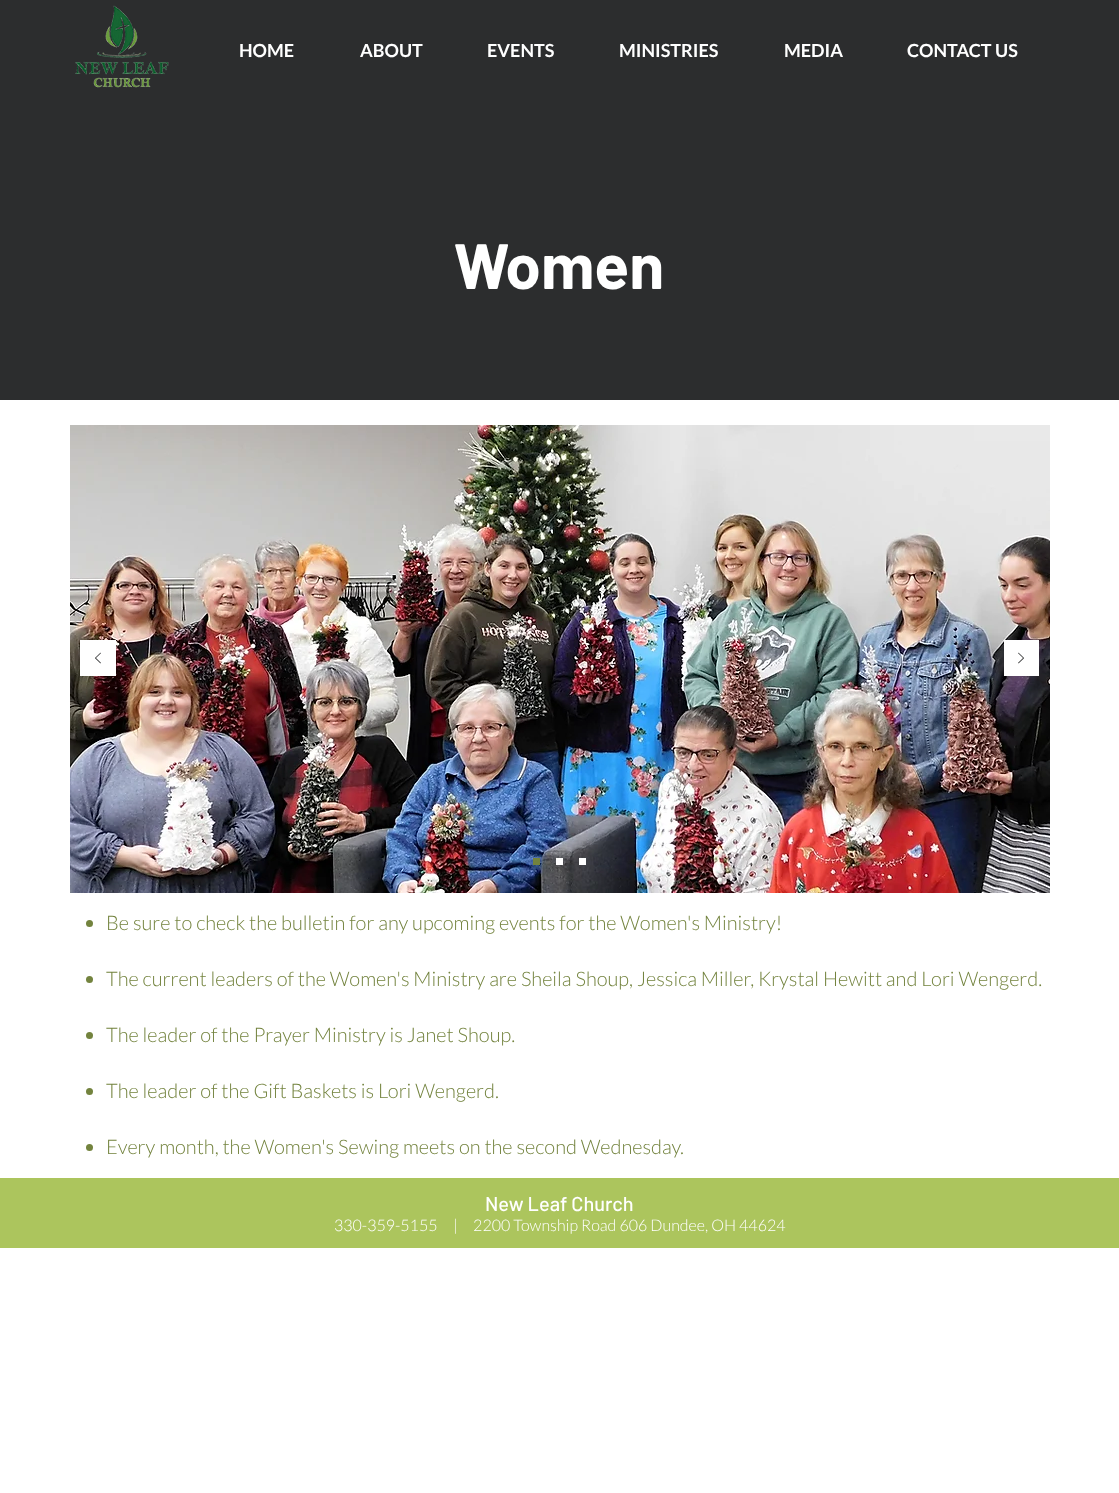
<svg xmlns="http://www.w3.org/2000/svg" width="1119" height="1493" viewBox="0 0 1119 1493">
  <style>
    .t1 { font: bold 18px Lato; fill: #fff; }
    .t2 { font: bold 64px Barlow; fill: #fff; }
    .t3 { font: 300 20px Lato; fill: #73833e; }
    .t4 { font: 500 20px Barlow; fill: #fff; }
    .t5 { font: 300 16px Lato; fill: #fff; }
  </style>
  <rect width="100%" height="100%" fill="#fff"/>
  <rect x="0" y="0" width="1119" height="400" fill="#2c2d2e"/>
  <image x="75" y="5" width="94" height="83" href="images/1.png"/>
  <text x="239" y="57" class="t1">HOME</text>
  <text x="360" y="57" class="t1">ABOUT</text>
  <text x="487" y="57" class="t1">EVENTS</text>
  <text x="619" y="57" class="t1">MINISTRIES</text>
  <text x="784" y="57" class="t1">MEDIA</text>
  <text x="907" y="57" class="t1">CONTACT US</text>
  <text x="454" y="289" class="t2">Women</text>
  <image x="70" y="425" width="980" height="468" href="images/2.png"/>
  <image x="80" y="640" width="36" height="36" href="images/3.png"/>
  <image x="1004" y="640" width="35" height="36" href="images/4.png"/>
  <rect x="533" y="858" width="7" height="7" fill="#73833e"/>
  <rect x="556" y="858" width="7" height="7" fill="#fff"/>
  <rect x="579" y="858" width="7" height="7" fill="#fff"/>
  <circle cx="89.5" cy="923.5" r="3.5" fill="#73833e"/>
  <text x="106" y="930" class="t3">Be sure to check the bulletin for any upcoming events for the Women's Ministry!</text>
  <circle cx="89.5" cy="979.5" r="3.5" fill="#73833e"/>
  <text x="106" y="986" class="t3">The current leaders of the Women's Ministry are Sheila Shoup, Jessica Miller, Krystal Hewitt and Lori Wengerd.</text>
  <circle cx="89.5" cy="1035.5" r="3.5" fill="#73833e"/>
  <text x="106" y="1042" class="t3">The leader of the Prayer Ministry is Janet Shoup.</text>
  <circle cx="89.5" cy="1091.5" r="3.5" fill="#73833e"/>
  <text x="106" y="1098" class="t3">The leader of the Gift Baskets is Lori Wengerd.</text>
  <circle cx="89.5" cy="1147.5" r="3.5" fill="#73833e"/>
  <text x="106" y="1154" class="t3">Every month, the Women's Sewing meets on the second Wednesday.</text>
  <rect x="0" y="1178" width="1119" height="70" fill="#acc55d"/>
  <text x="485" y="1211" class="t4">New Leaf Church</text>
  <text x="334" y="1231" class="t5" xml:space="preserve">330-359-5155     |     2200 Township Road 606 Dundee, OH 44624</text>
</svg>
